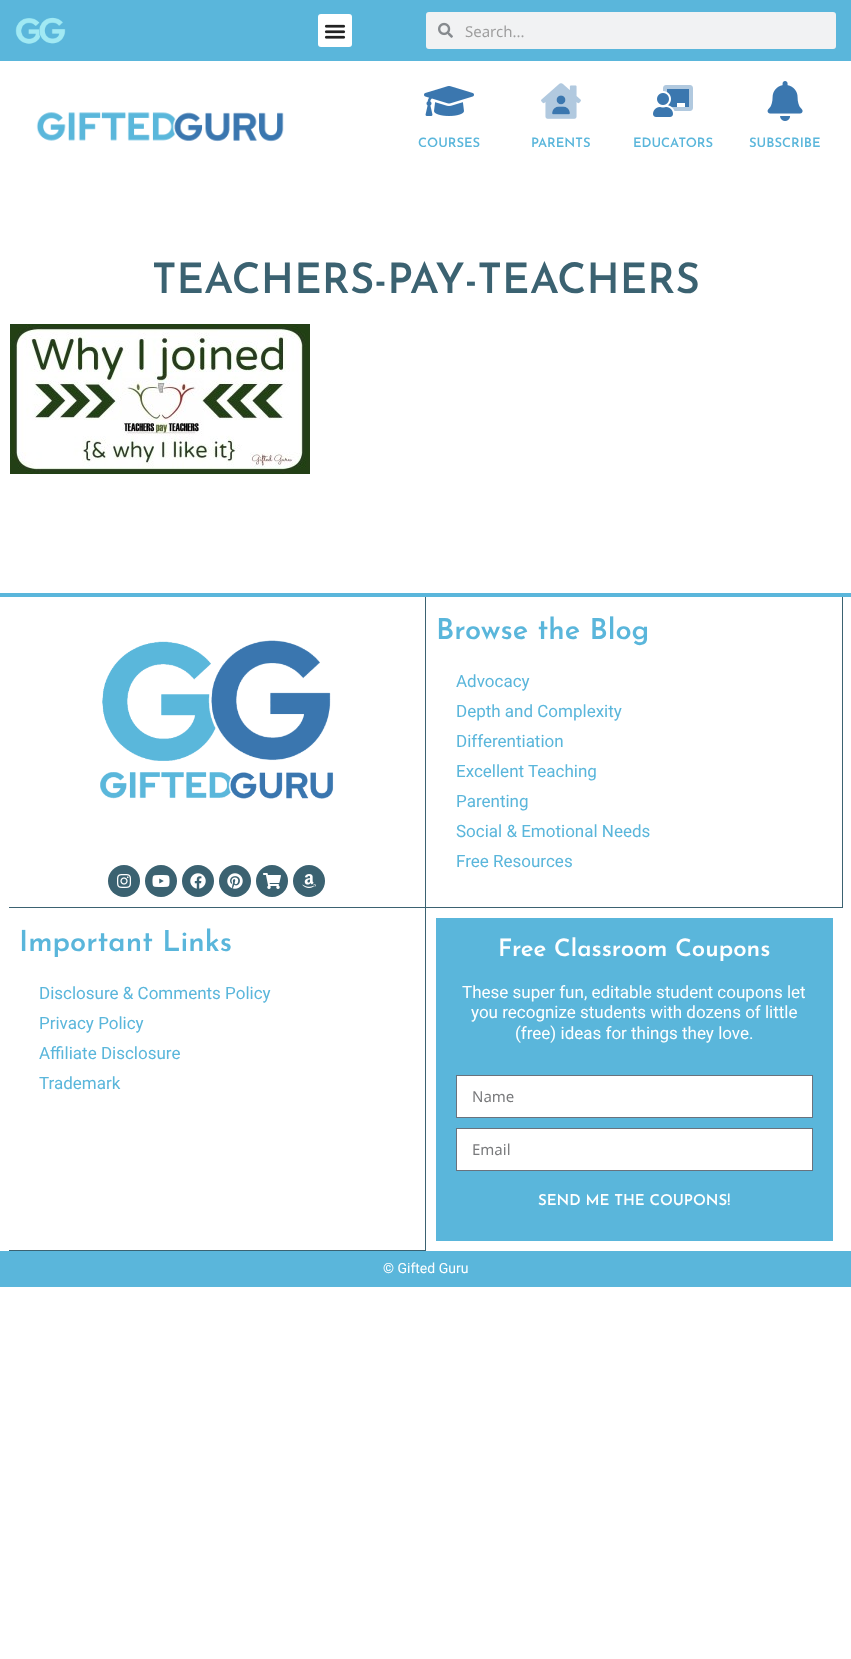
<svg xmlns="http://www.w3.org/2000/svg" width="851" height="1659" viewBox="0 0 851 1659">
  <style>
    .t1 { font: 15px Noto Sans; fill: #9e9e9e; }
    .t2 { font: 600 13px Josefin Sans; fill: #5ab6db; }
    .t3 { font: 600 42px Josefin Sans; fill: #3b6271; }
    .t4 { font: 600 29px Josefin Sans; fill: #5ab6db; }
    .t5 { font: 17px Roboto; fill: #5ab6db; }
    .t6 { font: 600 24px Josefin Sans; fill: #fff; }
    .t7 { font: 17px Roboto; fill: #fff; }
    .t8 { font: 15px Noto Sans; fill: #797a7c; }
    .t9 { font: 600 15px Josefin Sans; fill: #fff; }
    .t10 { font: 14px Roboto; fill: #fff; }
  </style>
  <rect width="100%" height="100%" fill="#fff"/>
  <rect x="0" y="0" width="851" height="61" fill="#5ab6db"/>
  <image x="15" y="17" width="51" height="27" href="images/1.png"/>
  <rect x="318" y="14" width="34" height="33" rx="3" fill="#fff"/>
  <image x="324" y="24" width="22" height="15" href="images/2.png"/>
  <rect x="426" y="12" width="410" height="37" rx="3" fill="#f1f2f3"/>
  <image x="438" y="22" width="15" height="16" href="images/3.png"/>
  <text x="465" y="37" class="t1">Search...</text>
  <image x="36" y="112" width="248" height="30" href="images/4.png"/>
  <image x="424" y="86" width="50" height="30" href="images/5.png"/>
  <text x="418" y="147" class="t2">COURSES</text>
  <image x="541" y="83" width="40" height="36" href="images/6.png"/>
  <text x="531" y="147" class="t2">PARENTS</text>
  <image x="653" y="85" width="40" height="32" href="images/7.png"/>
  <text x="633" y="147" class="t2">EDUCATORS</text>
  <image x="767" y="81" width="36" height="40" href="images/8.png"/>
  <text x="749" y="147" class="t2">SUBSCRIBE</text>
  <text x="152" y="293" class="t3">TEACHERS-PAY-TEACHERS</text>
  <image x="10" y="324" width="300" height="150" href="images/9.png"/>
  <rect x="0" y="593" width="851" height="4" fill="#5ab6db"/>
  <rect x="425" y="597" width="1" height="654" fill="#3b6271"/>
  <rect x="9" y="907" width="417" height="1" fill="#3b6271"/>
  <image x="100" y="640" width="234" height="159" href="images/10.png"/>
  <circle cx="124" cy="881" r="16" fill="#3b6271"/>
  <image x="117" y="874" width="14" height="14" href="images/11.png"/>
  <circle cx="161" cy="881" r="16" fill="#3b6271"/>
  <image x="152" y="875" width="18" height="12" href="images/12.png"/>
  <circle cx="198" cy="881" r="16" fill="#3b6271"/>
  <image x="190" y="873" width="16" height="16" href="images/13.png"/>
  <circle cx="235" cy="881" r="16" fill="#3b6271"/>
  <image x="227" y="873" width="16" height="16" href="images/14.png"/>
  <circle cx="272" cy="881" r="16" fill="#3b6271"/>
  <image x="263" y="873" width="18" height="16" href="images/15.png"/>
  <circle cx="309" cy="881" r="16" fill="#3b6271"/>
  <image x="302" y="874" width="14" height="14" href="images/16.png"/>
  <rect x="842" y="597" width="1" height="311" fill="#3b6271"/>
  <rect x="426" y="907" width="417" height="1" fill="#3b6271"/>
  <text x="436" y="639" class="t4">Browse the Blog</text>
  <text x="456" y="687" class="t5">Advocacy</text>
  <text x="456" y="717" class="t5">Depth and Complexity</text>
  <text x="456" y="747" class="t5">Differentiation</text>
  <text x="456" y="777" class="t5">Excellent Teaching</text>
  <text x="456" y="807" class="t5">Parenting</text>
  <text x="456" y="837" class="t5">Social &amp; Emotional Needs</text>
  <text x="456" y="867" class="t5">Free Resources</text>
  <rect x="9" y="1250" width="417" height="1" fill="#3b6271"/>
  <text x="19" y="951" class="t4">Important Links</text>
  <text x="39" y="999" class="t5">Disclosure &amp; Comments Policy</text>
  <text x="39" y="1029" class="t5">Privacy Policy</text>
  <text x="39" y="1059" class="t5">Affiliate Disclosure</text>
  <text x="39" y="1089" class="t5">Trademark</text>
  <rect x="436" y="918" width="397" height="323" fill="#5ab6db"/>
  <text x="498" y="956" class="t6">Free Classroom Coupons</text>
  <text x="462" y="998" class="t7">These super fun, editable student coupons let</text>
  <text x="471" y="1018" class="t7">you recognize students with dozens of little</text>
  <text x="515" y="1039" class="t7">(free) ideas for things they love.</text>
  <rect x="456.5" y="1075.5" width="356" height="42" fill="#fff" stroke="#69727d"/>
  <text x="472" y="1102" class="t8">Name</text>
  <rect x="456.5" y="1128.5" width="356" height="42" fill="#fff" stroke="#69727d"/>
  <text x="472" y="1155" class="t8">Email</text>
  <text x="538" y="1205" class="t9">SEND ME THE COUPONS!</text>
  <rect x="0" y="1251" width="851" height="36" fill="#5ab6db"/>
  <text x="383" y="1273" class="t10">© Gifted Guru</text>
</svg>
